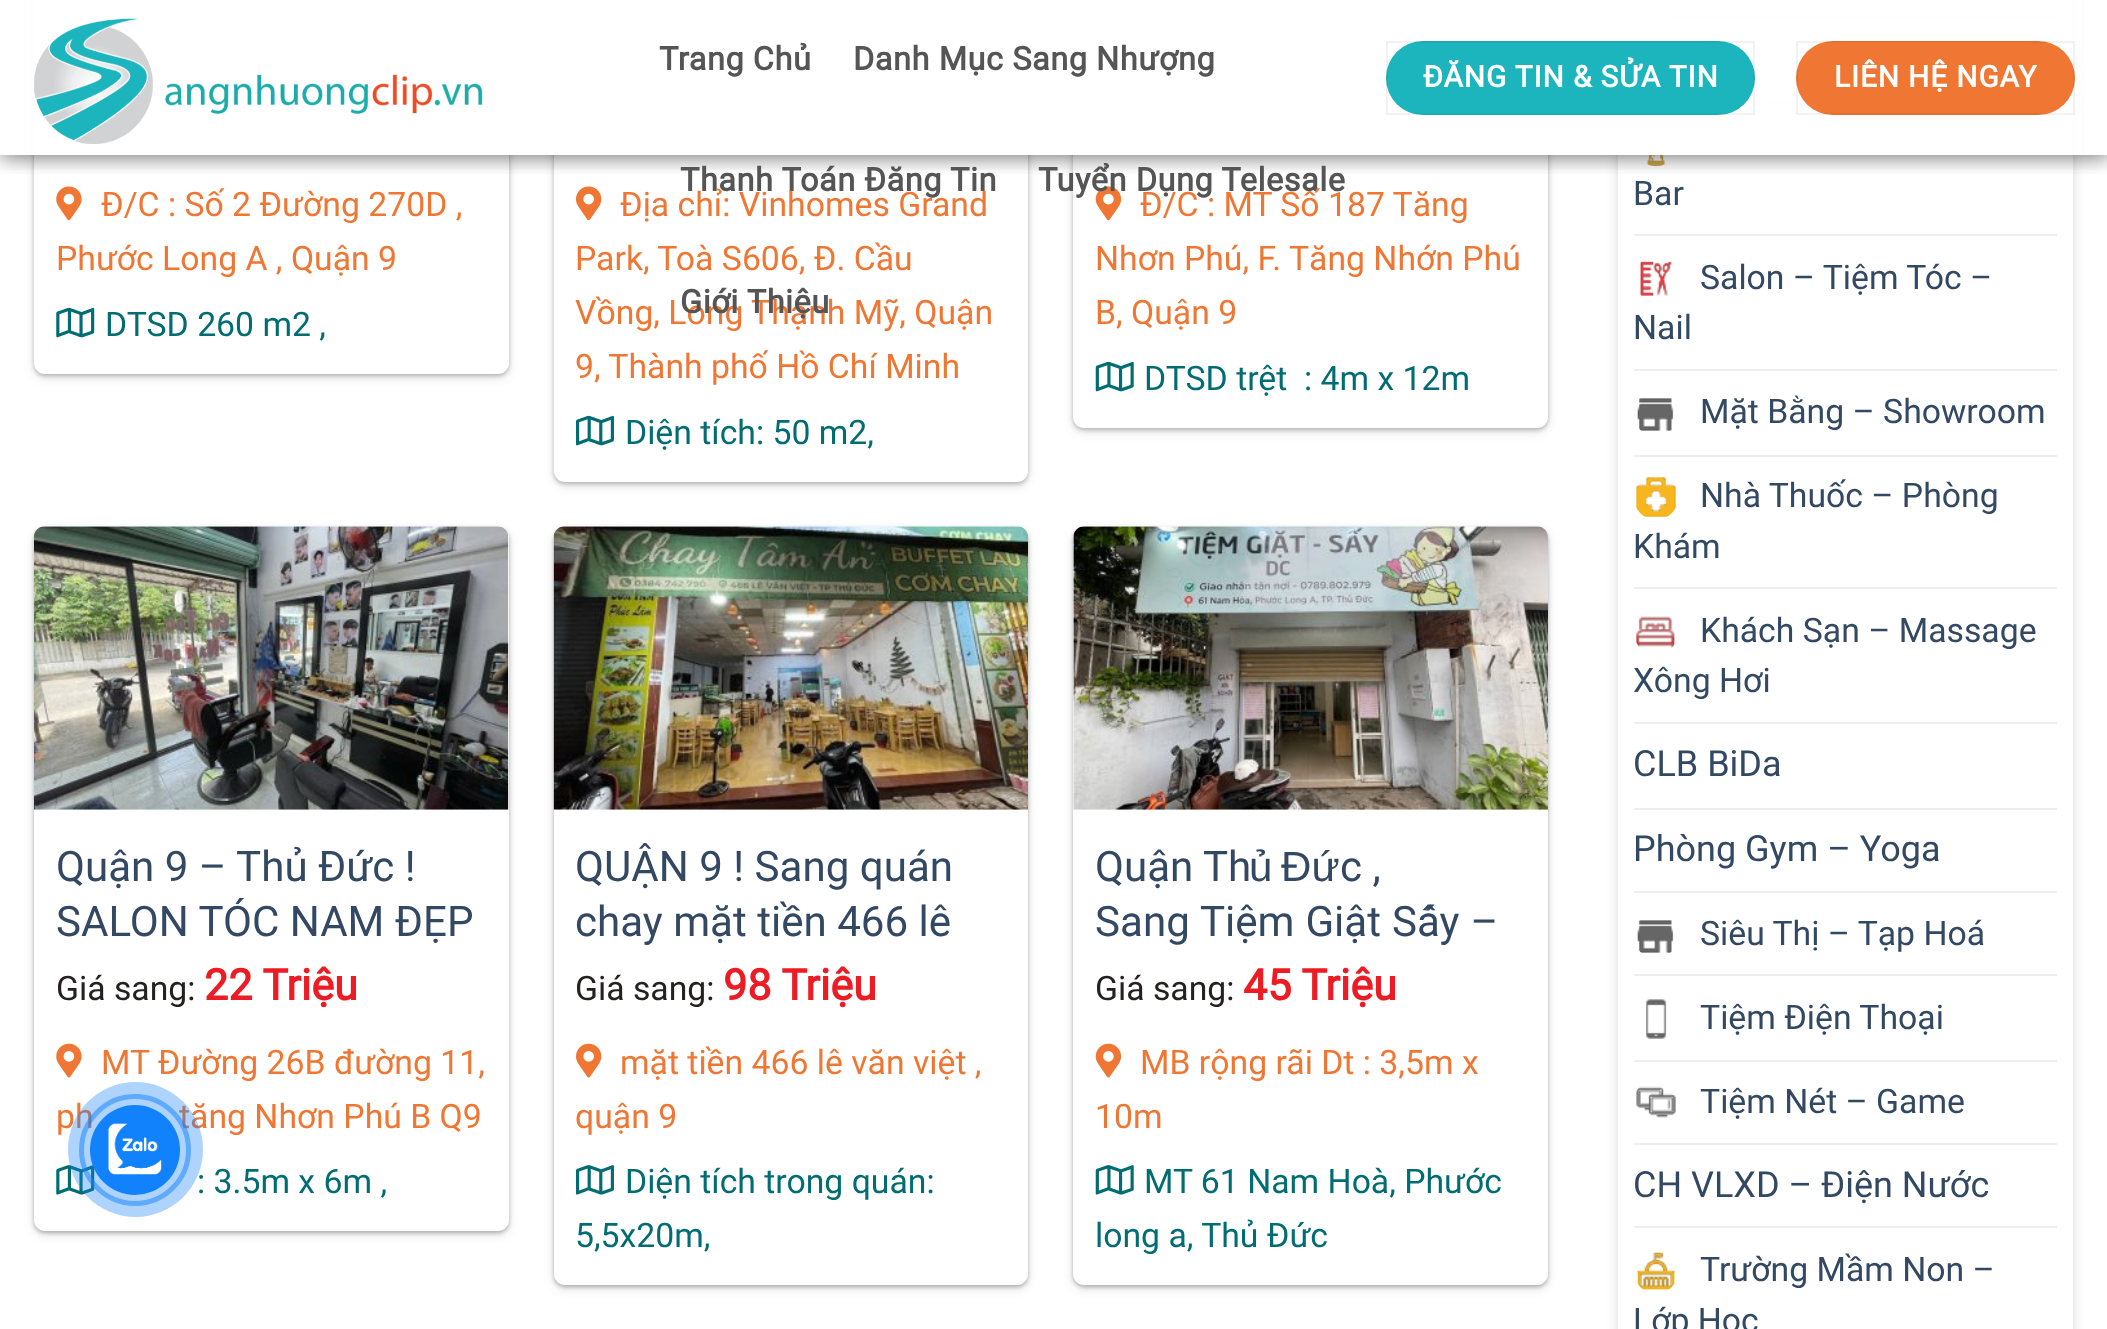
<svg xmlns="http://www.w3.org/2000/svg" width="2107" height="1329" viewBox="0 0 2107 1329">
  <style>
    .t1 { font: bold 32.4px Roboto; letter-spacing: 0.6px; fill: #555; }
    .t2 { font: 33.75px Roboto; fill: #ef7733; }
    .t3 { font: bold 29.75px Roboto; letter-spacing: 0.9px; fill: #fff; }
    .t4 { font: 33.75px Roboto; fill: #016d73; }
    .t5 { font: 42.1px Roboto; fill: #334862; }
    .t6 { font: 33.75px Roboto; fill: #252121; }
    .t7 { font: bold 43px Roboto; fill: #ed1c24; }
    .t8 { font: 42.1px Liberation Sans; fill: #334862; }
    .t9 { font: 33.75px Roboto; fill: #334862; }
    .t10 { font: 36px Roboto; fill: #334862; }
  </style>
  <defs>
    <clipPath id="clip1"><path d="M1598 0H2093V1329H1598ZM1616-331H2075V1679H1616Z" clip-rule="evenodd"/></clipPath>
    <clipPath id="clip2"><rect x="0" y="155" width="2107" height="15"/></clipPath>
    <clipPath id="clip3"><rect x="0" y="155" width="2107" height="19"/></clipPath>
  </defs>
  <rect width="100%" height="100%" fill="#fff"/>
  <rect x="34" y="-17" width="475" height="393" rx="11" fill="#0000003d" filter="blur(2px)"/>
  <rect x="34" y="-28" width="475" height="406" rx="11" fill="#0000001a" filter="blur(5.5px)"/>
  <rect x="34" y="-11" width="475" height="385" rx="11" fill="#fff"/>
  <image x="56" y="186" width="26" height="35" href="images/2.png"/>
  <rect x="554" y="-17" width="474" height="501" rx="11" fill="#0000003d" filter="blur(2px)"/>
  <rect x="554" y="-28" width="474" height="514" rx="11" fill="#0000001a" filter="blur(5.5px)"/>
  <rect x="554" y="-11" width="474" height="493" rx="11" fill="#fff"/>
  <image x="576" y="186" width="26" height="35" href="images/4.png"/>
  <rect x="1073" y="-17" width="475" height="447" rx="11" fill="#0000003d" filter="blur(2px)"/>
  <rect x="1073" y="-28" width="475" height="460" rx="11" fill="#0000001a" filter="blur(5.5px)"/>
  <rect x="1073" y="-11" width="475" height="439" rx="11" fill="#fff"/>
  <image x="1095" y="186" width="27" height="35" href="images/6.png"/>
  <g clip-path="url(#clip1)">
    <rect x="1616" y="-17" width="459" height="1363" fill="#0000001a" filter="blur(5.5px)"/>
  </g>
  <rect x="1617" y="-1" width="457" height="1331" fill="none" stroke="#eee" stroke-width="2"/>
  <rect x="1634" y="16" width="423" height="2" fill="#eee"/>
  <rect x="1745" y="101" width="61" height="2" fill="#eee"/>
  <image x="1657" y="39" width="5" height="2" href="images/17.png"/>
  <image x="1644" y="121" width="24" height="46" href="images/18.png"/>
  <g clip-path="url(#clip2)">
    <rect x="2" y="2" width="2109" height="156" fill="#00000026" filter="blur(11px)"/>
  </g>
  <rect x="27" y="0" width="2055" height="155" fill="#ffffffe6"/>
  <rect x="33" y="0" width="1635" height="155" fill="#ffffffe6"/>
  <g clip-path="url(#clip3)">
    <rect x="0" y="0" width="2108" height="155" fill="#00000080" filter="blur(11px)"/>
  </g>
  <image x="34" y="18" width="449" height="126" href="images/1.png"/>
  <text x="659" y="70" class="t1">Trang Chủ</text>
  <text x="853" y="70" class="t1">Danh Mục Sang Nhượng</text>
  <text x="680" y="191" class="t1">Thanh Toán Đăng Tin</text>
  <text x="1038" y="191" class="t1">Tuyển Dụng Telesale</text>
  <text x="575" y="324" class="t2">Vồng, Long Thạnh Mỹ, Quận</text>
  <text x="680" y="313" class="t1">Giới Thiệu</text>
  <rect x="1386" y="41" width="369" height="74" rx="37" fill="#1cb5be"/>
  <rect x="1387" y="42" width="367" height="72" fill="none" stroke="#0000000d" stroke-width="2"/>
  <text x="1423" y="87" class="t3">ĐĂNG TIN &amp; SỬA TIN</text>
  <rect x="1796" y="41" width="279" height="74" rx="37" fill="#ef7733"/>
  <rect x="1797" y="42" width="277" height="72" fill="none" stroke="#0000000d" stroke-width="2"/>
  <text x="1834" y="87" class="t3">LIÊN HỆ NGAY</text>
  <text x="101" y="216" class="t2">Đ/C : Số 2 Đường 270D ,</text>
  <text x="56" y="270" class="t2">Phước Long A , Quận 9</text>
  <image x="56" y="307" width="39" height="31" href="images/3.png"/>
  <text x="105" y="336" class="t4">DTSD 260 m2 ,</text>
  <text x="620" y="216" class="t2">Địa chỉ: Vinhomes Grand</text>
  <text x="575" y="270" class="t2">Park, Toà S606, Đ. Cầu</text>
  <text x="575" y="378" class="t2">9, Thành phố Hồ Chí Minh</text>
  <image x="576" y="415" width="38" height="31" href="images/5.png"/>
  <text x="625" y="444" class="t4">Diện tích: 50 m2,</text>
  <text x="1140" y="216" class="t2">Đ/C : MT Số 187 Tăng</text>
  <text x="1095" y="270" class="t2">Nhơn Phú, F. Tăng Nhớn Phú</text>
  <text x="1095" y="324" class="t2">B, Quận 9</text>
  <image x="1095" y="361" width="39" height="31" href="images/7.png"/>
  <text x="1144" y="390" class="t4" xml:space="preserve">DTSD trệt  : 4m x 12m</text>
  <rect x="34" y="529" width="475" height="704" rx="11" fill="#0000003d" filter="blur(2px)"/>
  <rect x="38" y="533" width="466" height="696" rx="7" fill="#0000001f" filter="blur(3.5px)"/>
  <rect x="34" y="531" width="475" height="704" rx="11" fill="#0000001a" filter="blur(5.5px)"/>
  <rect x="34" y="527" width="475" height="704" rx="11" fill="#fff"/>
  <image x="34" y="526" width="475" height="284" href="images/8.png"/>
  <text x="56" y="881" class="t5">Quận 9 – Thủ Đức !</text>
  <text x="56" y="936" class="t5">SALON TÓC NAM ĐẸP</text>
  <text x="56" y="1000" class="t6">Giá sang:</text>
  <text x="204" y="1000" class="t7">22 Triệu</text>
  <image x="56" y="1043" width="26" height="35" href="images/9.png"/>
  <text x="101" y="1074" class="t2">MT Đường 26B đường 11,</text>
  <text x="56" y="1128" class="t2">ph</text>
  <text x="179" y="1128" class="t2">tăng Nhơn Phú B Q9</text>
  <image x="56" y="1165" width="39" height="30" href="images/10.png"/>
  <text x="197" y="1193" class="t4">: 3.5m x 6m ,</text>
  <rect x="554" y="529" width="474" height="758" rx="11" fill="#0000003d" filter="blur(2px)"/>
  <rect x="558" y="533" width="466" height="750" rx="7" fill="#0000001f" filter="blur(3.5px)"/>
  <rect x="554" y="531" width="474" height="758" rx="11" fill="#0000001a" filter="blur(5.5px)"/>
  <rect x="554" y="527" width="474" height="758" rx="11" fill="#fff"/>
  <image x="553" y="526" width="475" height="284" href="images/11.png"/>
  <text x="575" y="881" class="t5">QUẬN 9 ! Sang quán</text>
  <text x="575" y="936" class="t5">chay mặt tiền 466 lê</text>
  <text x="575" y="1000" class="t6">Giá sang:</text>
  <text x="723" y="1000" class="t7">98 Triệu</text>
  <image x="576" y="1043" width="26" height="35" href="images/12.png"/>
  <text x="620" y="1074" class="t2">mặt tiền 466 lê văn việt ,</text>
  <text x="575" y="1128" class="t2">quận 9</text>
  <image x="576" y="1165" width="38" height="30" href="images/13.png"/>
  <text x="625" y="1193" class="t4">Diện tích trong quán:</text>
  <text x="575" y="1247" class="t4">5,5x20m,</text>
  <rect x="1073" y="529" width="475" height="758" rx="11" fill="#0000003d" filter="blur(2px)"/>
  <rect x="1078" y="533" width="466" height="750" rx="7" fill="#0000001f" filter="blur(3.5px)"/>
  <rect x="1073" y="531" width="475" height="758" rx="11" fill="#0000001a" filter="blur(5.5px)"/>
  <rect x="1073" y="527" width="475" height="758" rx="11" fill="#fff"/>
  <image x="1073" y="526" width="475" height="284" href="images/14.png"/>
  <text x="1095" y="881" class="t5">Quận Th</text>
  <text x="1249" y="881" word-spacing="-3" class="t8">ủ Đứ</text>
  <text x="1340" y="881" class="t5">c ,</text>
  <text x="1095" y="936" word-spacing="0.5" class="t5">Sang Tiệm Giật Sấy –</text>
  <text x="1095" y="1000" class="t6">Giá sang:</text>
  <text x="1243" y="1000" class="t7">45 Triệu</text>
  <image x="1095" y="1043" width="27" height="35" href="images/15.png"/>
  <text x="1140" y="1074" class="t2">MB rộng rãi Dt : 3,5m x</text>
  <text x="1095" y="1128" class="t2">10m</text>
  <image x="1095" y="1165" width="39" height="30" href="images/16.png"/>
  <text x="1144" y="1193" class="t4">MT 61 Nam Hoà, Phước</text>
  <text x="1095" y="1247" class="t4">long a, Thủ Đức</text>
  <rect x="1634" y="234" width="423" height="2" fill="#eee"/>
  <text x="1633" y="205" class="t9">Bar</text>
  <rect x="1634" y="369" width="423" height="2" fill="#eee"/>
  <image x="1640" y="261" width="32" height="35" href="images/19.png"/>
  <text x="1700" y="289" class="t9">Salon – Tiệm Tóc –</text>
  <text x="1633" y="339" class="t9">Nail</text>
  <rect x="1634" y="455" width="423" height="2" fill="#eee"/>
  <image x="1637" y="398" width="37" height="33" href="images/20.png"/>
  <text x="1700" y="423" class="t9">Mặt Bằng – Showroom</text>
  <rect x="1634" y="587" width="423" height="2" fill="#eee"/>
  <image x="1636" y="477" width="40" height="40" href="images/21.png"/>
  <text x="1700" y="507" class="t9">Nhà Thuốc – Phòng</text>
  <text x="1633" y="558" class="t9">Khám</text>
  <rect x="1634" y="722" width="423" height="2" fill="#eee"/>
  <image x="1636" y="616" width="39" height="32" href="images/22.png"/>
  <text x="1700" y="642" class="t9">Khách Sạn – Massage</text>
  <text x="1633" y="692" class="t9">Xông Hơi</text>
  <rect x="1634" y="808" width="423" height="2" fill="#eee"/>
  <text x="1633" y="776" class="t10">CLB BiDa</text>
  <rect x="1634" y="891" width="423" height="2" fill="#eee"/>
  <text x="1633" y="861" class="t10">Phòng Gym – Yoga</text>
  <rect x="1634" y="974" width="423" height="2" fill="#eee"/>
  <image x="1637" y="920" width="37" height="33" href="images/20.png"/>
  <text x="1700" y="945" class="t9">Siêu Thị – Tạp Hoá</text>
  <rect x="1634" y="1060" width="423" height="2" fill="#eee"/>
  <image x="1646" y="999" width="21" height="40" href="images/23.png"/>
  <text x="1700" y="1029" class="t9">Tiệm Điện Thoại</text>
  <rect x="1634" y="1143" width="423" height="2" fill="#eee"/>
  <image x="1636" y="1086" width="40" height="32" href="images/24.png"/>
  <text x="1700" y="1113" class="t9">Tiệm Nét – Game</text>
  <rect x="1634" y="1226" width="423" height="2" fill="#eee"/>
  <text x="1633" y="1197" class="t10">CH VLXD – Điện Nước</text>
  <image x="1637" y="1252" width="38" height="38" href="images/25.png"/>
  <text x="1700" y="1281" class="t9">Trường Mầm Non –</text>
  <text x="1633" y="1332" class="t9">Lớp Học</text>
  <circle cx="135" cy="1150" r="53.5" fill="none" stroke="#1182fc80" stroke-width="5"/>
  <circle cx="135.5" cy="1149.5" r="67.5" fill="#1182fc57"/>
  <circle cx="135" cy="1150" r="45" fill="#1182fc"/>
  <image x="108" y="1123" width="54" height="52" href="images/26.png"/>
</svg>
